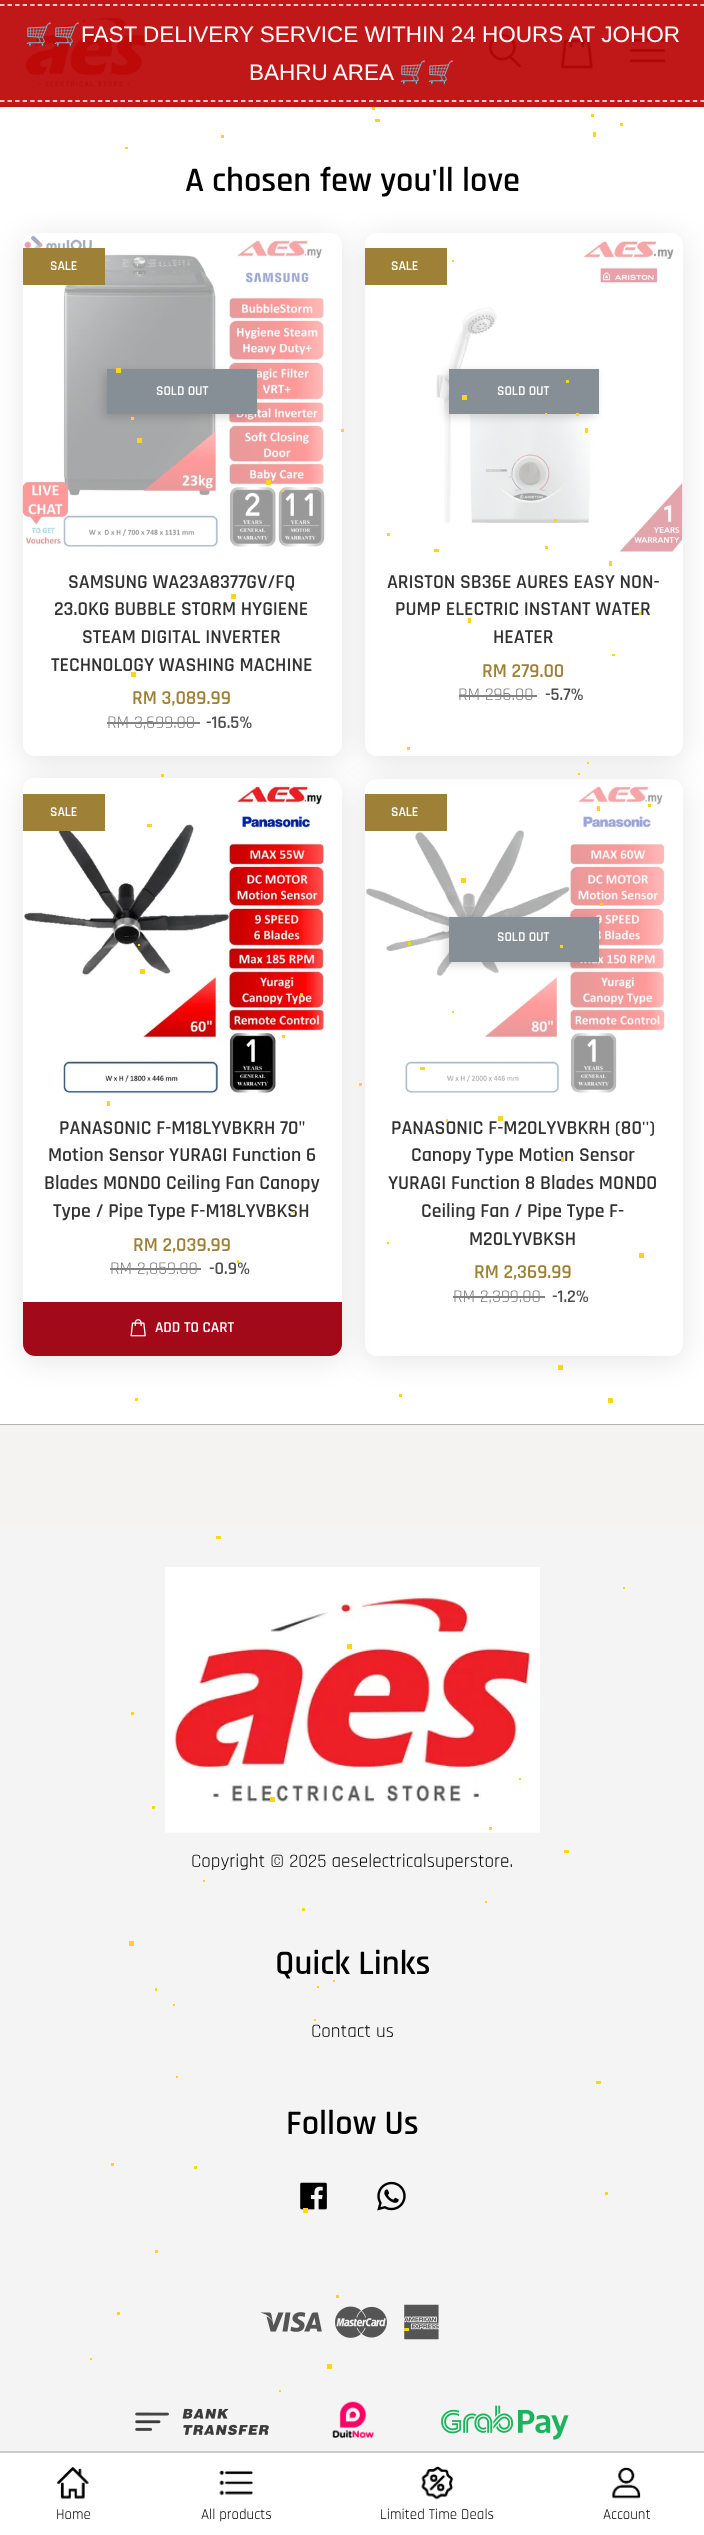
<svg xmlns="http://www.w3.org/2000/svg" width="704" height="2535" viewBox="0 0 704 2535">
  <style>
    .t1 { font: 22.5px Noto Color Emoji; fill: #fff; }
    .t2 { font: 22.5px Liberation Sans; fill: #fff; }
    .t3 { font: 600 34.5px Rajdhani; fill: #000; }
    .t4 { font: 600 13.5px Rajdhani; fill: #fff; }
    .t5 { font: 600 19.75px Rajdhani; fill: #333; }
    .t6 { font: 600 19.75px Rajdhani; fill: #9e8137; }
    .t7 { font: 18px Rajdhani; fill: #828282; }
    .t8 { font: 600 18px Rajdhani; fill: #4d4d4d; }
    .t9 { font: 600 15.25px Rajdhani; fill: #fff; }
    .t10 { font: 19.1px Rajdhani; fill: #000; }
    .t11 { font: 15px Rajdhani; fill: #000; }
  </style>
  <defs>
    <clipPath id="clip1"><path d="M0 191H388V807H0ZM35 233H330C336.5 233 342 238.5 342 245V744C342 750.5 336.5 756 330 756H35C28.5 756 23 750.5 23 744V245C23 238.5 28.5 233 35 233Z" clip-rule="evenodd"/></clipPath>
    <clipPath id="clip2"><path d="M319 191H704V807H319ZM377 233H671C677.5 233 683 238.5 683 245V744C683 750.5 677.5 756 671 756H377C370.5 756 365 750.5 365 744V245C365 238.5 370.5 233 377 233Z" clip-rule="evenodd"/></clipPath>
    <clipPath id="clip3"><path d="M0 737H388V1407H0ZM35 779H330C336.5 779 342 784.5 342 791V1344C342 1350.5 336.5 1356 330 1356H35C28.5 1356 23 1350.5 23 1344V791C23 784.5 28.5 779 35 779Z" clip-rule="evenodd"/></clipPath>
    <clipPath id="clip4"><path d="M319 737H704V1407H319ZM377 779H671C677.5 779 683 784.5 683 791V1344C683 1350.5 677.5 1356 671 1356H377C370.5 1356 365 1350.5 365 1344V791C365 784.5 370.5 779 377 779Z" clip-rule="evenodd"/></clipPath>
  </defs>
  <rect width="100%" height="100%" fill="#fff"/>
  <rect x="0" y="0" width="704" height="105" fill="#c01818"/>
  <rect x="0" y="105" width="704" height="2" fill="#bc1515"/>
  <image x="25" y="16" width="122" height="71" href="images/1.png"/>
  <image x="489" y="33" width="32" height="35" href="images/2.png"/>
  <image x="561" y="32" width="32" height="37" href="images/3.png"/>
  <image x="629" y="38" width="37" height="25" href="images/4.png"/>
  <path d="M0 5H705" fill="none" stroke="#fff" stroke-width="1.5" stroke-dasharray="4.5 3.03"/>
  <path d="M0 101H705" fill="none" stroke="#fff" stroke-width="1.5" stroke-dasharray="4.5 3.03"/>
  <text x="25" y="42" class="t1">🛒🛒</text>
  <text x="81" y="42" class="t2">FAST DELIVERY SERVICE WITHIN 24 HOURS AT JOHOR</text>
  <text x="249" y="80" class="t2">BAHRU AREA</text>
  <text x="399" y="80" class="t1">🛒🛒</text>
  <text x="185" y="191" class="t3">A chosen few you'll love</text>
  <g clip-path="url(#clip1)">
    <rect x="23" y="237" width="319" height="524" rx="12" fill="#0000001a" filter="blur(15px)"/>
  </g>
  <image x="22" y="235" width="304" height="312" href="images/5.png"/>
  <rect x="23" y="248" width="82" height="37" fill="#9e8137"/>
  <text x="50" y="270" class="t4">SALE</text>
  <rect x="104" y="372" width="150" height="45" fill="#00000026" filter="blur(4px)"/>
  <rect x="107" y="369" width="150" height="45" fill="#868e96"/>
  <text x="156" y="395" class="t4">SOLD OUT</text>
  <text x="68" y="588" class="t5">SAMSUNG WA23A8377GV/FQ</text>
  <text x="54" y="615" class="t5">23.0KG BUBBLE STORM HYGIENE</text>
  <text x="82" y="643" class="t5">STEAM DIGITAL INVERTER</text>
  <text x="51" y="671" class="t5">TECHNOLOGY WASHING MACHINE</text>
  <text x="132" y="704" class="t6">RM 3,089.99</text>
  <text x="107" y="728" class="t7">RM 3,699.00</text>
  <rect x="107" y="722" width="93" height="2" fill="#828282"/>
  <text x="206" y="728" class="t8">-16.5%</text>
  <g clip-path="url(#clip2)">
    <rect x="365" y="237" width="318" height="524" rx="12" fill="#0000001a" filter="blur(15px)"/>
  </g>
  <image x="436" y="240" width="247" height="312" href="images/6.png"/>
  <rect x="365" y="248" width="82" height="37" fill="#9e8137"/>
  <text x="391" y="270" class="t4">SALE</text>
  <rect x="446" y="372" width="150" height="45" fill="#00000026" filter="blur(4px)"/>
  <rect x="449" y="369" width="150" height="45" fill="#868e96"/>
  <text x="497" y="395" class="t4">SOLD OUT</text>
  <text x="387" y="588" class="t5">ARISTON SB36E AURES EASY NON-</text>
  <text x="395" y="615" class="t5">PUMP ELECTRIC INSTANT WATER</text>
  <text x="493" y="643" class="t5">HEATER</text>
  <text x="482" y="677" class="t6">RM 279.00</text>
  <text x="458" y="700" class="t7">RM 296.00</text>
  <rect x="459" y="695" width="78" height="2" fill="#828282"/>
  <text x="545" y="700" class="t8">-5.7%</text>
  <g clip-path="url(#clip3)">
    <rect x="23" y="783" width="319" height="578" rx="12" fill="#0000001a" filter="blur(15px)"/>
  </g>
  <image x="24" y="778" width="313" height="317" href="images/7.png"/>
  <rect x="23" y="794" width="82" height="37" fill="#9e8137"/>
  <text x="50" y="816" class="t4">SALE</text>
  <text x="59" y="1134" class="t5">PANASONIC F-M18LYVBKRH 70"</text>
  <text x="48" y="1161" class="t5">Motion Sensor YURAGI Function 6</text>
  <text x="44" y="1189" class="t5">Blades MONDO Ceiling Fan Canopy</text>
  <text x="53" y="1217" class="t5">Type / Pipe Type F-M18LYVBKSH</text>
  <text x="133" y="1251" class="t6">RM 2,039.99</text>
  <text x="110" y="1274" class="t7">RM 2,059.00</text>
  <rect x="110" y="1268" width="91" height="2" fill="#828282"/>
  <text x="209" y="1274" class="t8">-0.9%</text>
  <path d="M23 1302H342V1344C342 1350.5 336.5 1356 330 1356H35C28.5 1356 23 1350.5 23 1344Z" fill="#a30a19"/>
  <image x="130" y="1319" width="16" height="18" href="images/8.png"/>
  <text x="155" y="1332" class="t9">ADD TO CART</text>
  <g clip-path="url(#clip4)">
    <rect x="365" y="783" width="318" height="578" rx="12" fill="#0000001a" filter="blur(15px)"/>
  </g>
  <image x="366" y="784" width="301" height="309" href="images/9.png"/>
  <rect x="365" y="794" width="82" height="37" fill="#9e8137"/>
  <text x="391" y="816" class="t4">SALE</text>
  <rect x="446" y="920" width="150" height="45" fill="#00000026" filter="blur(4px)"/>
  <rect x="449" y="917" width="150" height="45" fill="#868e96"/>
  <text x="497" y="941" class="t4">SOLD OUT</text>
  <text x="391" y="1134" class="t5">PANASONIC F-M20LYVBKRH (80'')</text>
  <text x="411" y="1161" class="t5">Canopy Type Motion Sensor</text>
  <text x="388" y="1189" class="t5">YURAGI Function 8 Blades MONDO</text>
  <text x="421" y="1217" class="t5">Ceiling Fan / Pipe Type F-</text>
  <text x="469" y="1245" class="t5">M20LYVBKSH</text>
  <text x="474" y="1278" class="t6">RM 2,369.99</text>
  <text x="453" y="1302" class="t7">RM 2,399.00</text>
  <rect x="453" y="1296" width="92" height="2" fill="#828282"/>
  <text x="552" y="1302" class="t8">-1.2%</text>
  <rect x="0" y="1523" width="704" height="928" fill="#f4f4f4"/>
  <rect x="0" y="1424" width="704" height="1" fill="#b1b1b1"/>
  <rect x="0" y="1425" width="704" height="98" fill="#f5f2f2"/>
  <image x="165" y="1567" width="375" height="266" href="images/10.png"/>
  <text x="191" y="1867" class="t10">Copyright © 2025 aeselectricalsuperstore.</text>
  <text x="275" y="1974" class="t3">Quick Links</text>
  <text x="311" y="2037" class="t10">Contact us</text>
  <text x="286" y="2134" class="t3">Follow Us</text>
  <image x="300" y="2182" width="27" height="28" href="images/11.png"/>
  <image x="377" y="2181" width="29" height="30" href="images/12.png"/>
  <image x="261" y="2312" width="61" height="20" href="images/13.png"/>
  <image x="335" y="2306" width="52" height="32" href="images/14.png"/>
  <image x="404" y="2304" width="35" height="36" href="images/15.png"/>
  <image x="135" y="2408" width="134" height="28" href="images/16.png"/>
  <image x="332" y="2401" width="42" height="37" href="images/17.png"/>
  <image x="441" y="2405" width="128" height="35" href="images/18.png"/>
  <rect x="0" y="2451" width="704" height="2" fill="#ccc"/>
  <image x="57" y="2467" width="32" height="32" href="images/19.png"/>
  <text x="56" y="2519" class="t11">Home</text>
  <image x="219" y="2470" width="35" height="26" href="images/20.png"/>
  <text x="201" y="2519" class="t11">All products</text>
  <image x="421" y="2466" width="33" height="34" href="images/21.png"/>
  <text x="380" y="2519" class="t11">Limited Time Deals</text>
  <image x="611" y="2467" width="30" height="32" href="images/22.png"/>
  <text x="603" y="2519" class="t11">Account</text>
  <rect x="372" y="107" width="3" height="3" fill="#fcd41a"/>
  <rect x="591" y="114" width="3" height="3" fill="#fcd41a"/>
  <rect x="375" y="119" width="5" height="3" fill="#fcd41a"/>
  <rect x="620" y="123" width="3" height="3" fill="#fcd41a"/>
  <rect x="221" y="135" width="3" height="3" fill="#fcd41a"/>
  <rect x="593" y="132" width="3" height="5" fill="#fcd41a"/>
  <rect x="125" y="147" width="3" height="2" fill="#fcd41a"/>
  <rect x="452" y="260" width="2" height="2" fill="#fcd41a"/>
  <rect x="116" y="368" width="5" height="5" fill="#fcd41a"/>
  <rect x="566" y="380" width="3" height="3" fill="#fcd41a"/>
  <rect x="462" y="395" width="5" height="5" fill="#fcd41a"/>
  <rect x="545" y="413" width="2" height="2" fill="#fcd41a"/>
  <rect x="576" y="413" width="3" height="3" fill="#fcd41a"/>
  <rect x="131" y="417" width="3" height="3" fill="#fcd41a"/>
  <rect x="341" y="429" width="3" height="3" fill="#fcd41a"/>
  <rect x="585" y="428" width="3" height="5" fill="#fcd41a"/>
  <rect x="137" y="438" width="5" height="5" fill="#fcd41a"/>
  <rect x="266" y="480" width="5" height="5" fill="#fcd41a"/>
  <rect x="282" y="489" width="2" height="3" fill="#fcd41a"/>
  <rect x="554" y="519" width="3" height="3" fill="#fcd41a"/>
  <rect x="387" y="533" width="3" height="3" fill="#fcd41a"/>
  <rect x="545" y="546" width="3" height="3" fill="#fcd41a"/>
  <rect x="434" y="549" width="5" height="3" fill="#fcd41a"/>
  <rect x="609" y="561" width="3" height="5" fill="#fcd41a"/>
  <rect x="231" y="594" width="5" height="5" fill="#fcd41a"/>
  <rect x="639" y="612" width="2" height="3" fill="#fcd41a"/>
  <rect x="468" y="618" width="3" height="5" fill="#fcd41a"/>
  <rect x="612" y="654" width="3" height="2" fill="#fcd41a"/>
  <rect x="131" y="672" width="5" height="5" fill="#fcd41a"/>
  <rect x="407" y="747" width="3" height="3" fill="#fcd41a"/>
  <rect x="587" y="762" width="2" height="2" fill="#fcd41a"/>
  <rect x="161" y="774" width="3" height="3" fill="#fcd41a"/>
  <rect x="578" y="773" width="2" height="2" fill="#fcd41a"/>
  <rect x="648" y="804" width="3" height="3" fill="#fcd41a"/>
  <rect x="597" y="806" width="3" height="5" fill="#fcd41a"/>
  <rect x="147" y="824" width="5" height="3" fill="#fcd41a"/>
  <rect x="461" y="878" width="5" height="5" fill="#fcd41a"/>
  <rect x="600" y="903" width="3" height="3" fill="#fcd41a"/>
  <rect x="138" y="944" width="2" height="2" fill="#fcd41a"/>
  <rect x="408" y="942" width="3" height="3" fill="#fcd41a"/>
  <rect x="560" y="945" width="3" height="3" fill="#fcd41a"/>
  <rect x="140" y="969" width="5" height="5" fill="#fcd41a"/>
  <rect x="300" y="993" width="3" height="3" fill="#fcd41a"/>
  <rect x="452" y="1011" width="2" height="2" fill="#fcd41a"/>
  <rect x="282" y="1035" width="3" height="3" fill="#fcd41a"/>
  <rect x="420" y="1067" width="5" height="3" fill="#fcd41a"/>
  <rect x="359" y="1083" width="3" height="3" fill="#fcd41a"/>
  <rect x="107" y="1101" width="3" height="5" fill="#fcd41a"/>
  <rect x="446" y="1119" width="2" height="3" fill="#fcd41a"/>
  <rect x="498" y="1116" width="5" height="5" fill="#fcd41a"/>
  <rect x="561" y="1157" width="3" height="5" fill="#fcd41a"/>
  <rect x="293" y="1211" width="2" height="2" fill="#fcd41a"/>
  <rect x="387" y="1242" width="2" height="2" fill="#fcd41a"/>
  <rect x="639" y="1253" width="5" height="5" fill="#fcd41a"/>
  <rect x="237" y="1260" width="2" height="3" fill="#fcd41a"/>
  <rect x="558" y="1365" width="5" height="5" fill="#fcd41a"/>
  <rect x="399" y="1394" width="3" height="3" fill="#fcd41a"/>
  <rect x="135" y="1398" width="3" height="3" fill="#fcd41a"/>
  <rect x="608" y="1398" width="5" height="5" fill="#fcd41a"/>
  <rect x="216" y="1536" width="5" height="3" fill="#fcd41a"/>
  <rect x="623" y="1587" width="2" height="2" fill="#fcd41a"/>
  <rect x="347" y="1644" width="5" height="5" fill="#fcd41a"/>
  <rect x="131" y="1712" width="3" height="3" fill="#fcd41a"/>
  <rect x="519" y="1778" width="2" height="2" fill="#fcd41a"/>
  <rect x="270" y="1797" width="5" height="5" fill="#fcd41a"/>
  <rect x="152" y="1806" width="3" height="3" fill="#fcd41a"/>
  <rect x="489" y="1827" width="3" height="3" fill="#fcd41a"/>
  <rect x="564" y="1850" width="5" height="3" fill="#fcd41a"/>
  <rect x="203" y="1880" width="2" height="2" fill="#fcd41a"/>
  <rect x="485" y="1901" width="2" height="2" fill="#fcd41a"/>
  <rect x="302" y="1908" width="3" height="3" fill="#fcd41a"/>
  <rect x="129" y="1941" width="5" height="5" fill="#fcd41a"/>
  <rect x="333" y="1980" width="2" height="2" fill="#fcd41a"/>
  <rect x="317" y="1986" width="2" height="2" fill="#fcd41a"/>
  <rect x="155" y="1988" width="2" height="3" fill="#fcd41a"/>
  <rect x="173" y="2004" width="2" height="2" fill="#fcd41a"/>
  <rect x="314" y="2019" width="2" height="2" fill="#fcd41a"/>
  <rect x="176" y="2076" width="2" height="2" fill="#fcd41a"/>
  <rect x="596" y="2081" width="5" height="3" fill="#fcd41a"/>
  <rect x="111" y="2163" width="3" height="3" fill="#fcd41a"/>
  <rect x="194" y="2166" width="3" height="3" fill="#fcd41a"/>
  <rect x="605" y="2192" width="3" height="3" fill="#fcd41a"/>
  <rect x="303" y="2208" width="5" height="5" fill="#fcd41a"/>
  <rect x="155" y="2250" width="3" height="3" fill="#fcd41a"/>
  <rect x="336" y="2295" width="3" height="3" fill="#fcd41a"/>
  <rect x="117" y="2312" width="3" height="3" fill="#fcd41a"/>
  <rect x="404" y="2328" width="5" height="3" fill="#fcd41a"/>
  <rect x="90" y="2358" width="2" height="2" fill="#fcd41a"/>
  <rect x="327" y="2364" width="5" height="5" fill="#fcd41a"/>
  <rect x="279" y="2390" width="2" height="2" fill="#fcd41a"/>
</svg>
